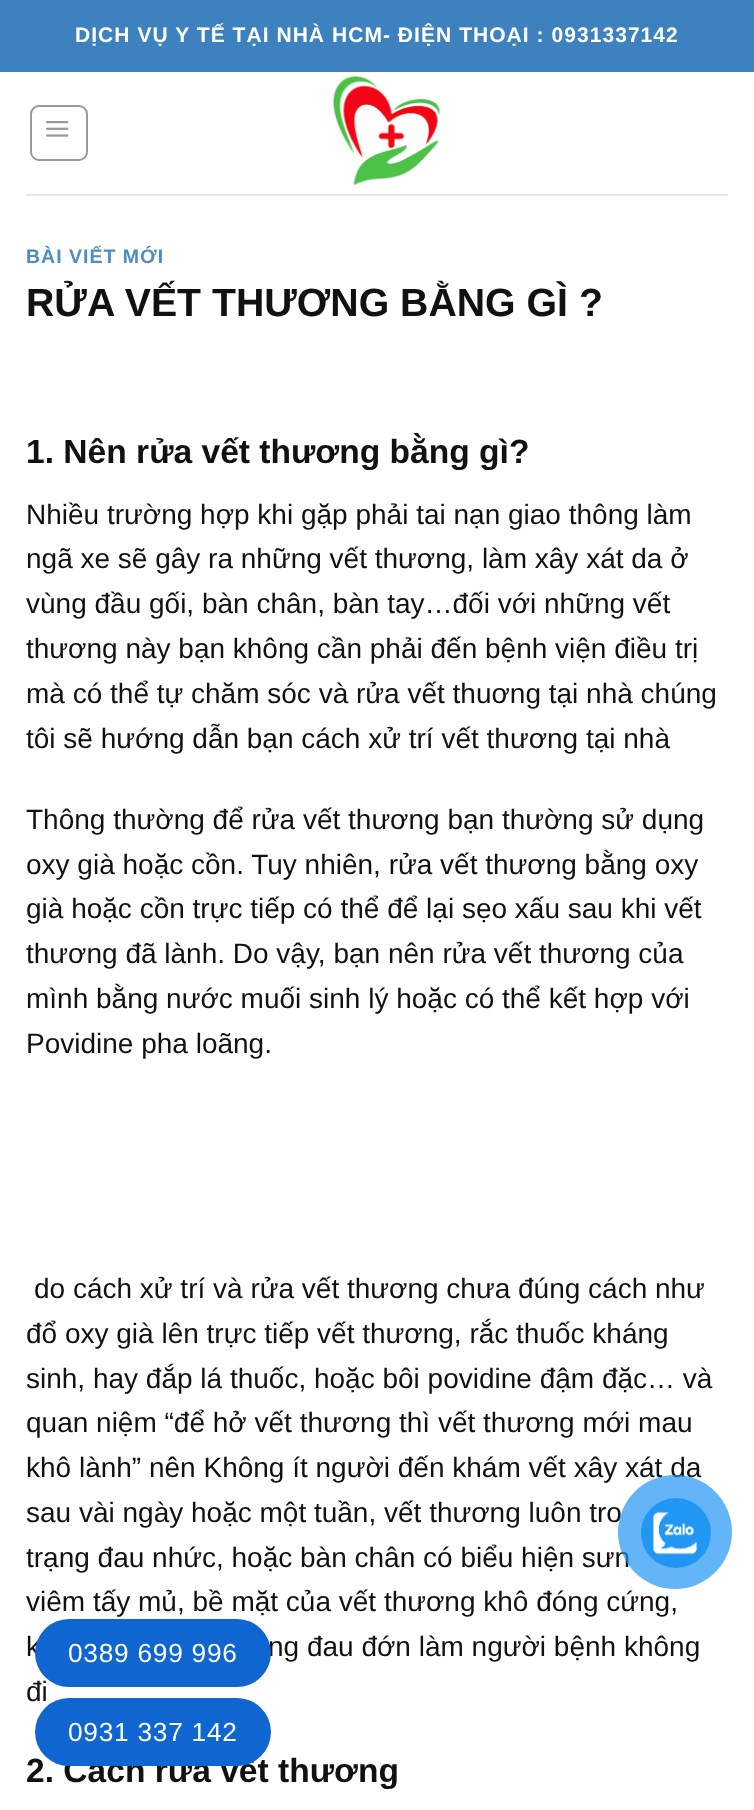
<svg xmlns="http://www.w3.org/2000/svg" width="754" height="1810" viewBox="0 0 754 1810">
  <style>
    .t1 { font: bold 21px Liberation Sans; letter-spacing: 1.05px; fill: #fff; }
    .t2 { font: bold 19.5px Liberation Sans; letter-spacing: 1px; fill: #4e8cc2; }
    .t3 { font: bold 39.25px Liberation Sans; fill: #111; }
    .t4 { font: bold 33.6px Liberation Sans; fill: #111; }
    .t5 { font: 28px Liberation Sans; fill: #111; }
    .t6 { font: 26.25px Liberation Sans; letter-spacing: 0.75px; fill: #fff; }
  </style>
  <rect width="100%" height="100%" fill="#fff"/>
  <rect x="0" y="0" width="754" height="72" fill="#3d82bf"/>
  <text x="75" y="42" class="t1">DỊCH VỤ Y TẾ TẠI NHÀ HCM- ĐIỆN THOẠI : 0931337142</text>
  <rect x="31" y="106" width="56" height="54" rx="8" fill="none" stroke="#999" stroke-width="2"/>
  <image x="46" y="121" width="23" height="16" href="images/1.png"/>
  <image x="332" y="75" width="108" height="111" href="images/2.png"/>
  <rect x="26" y="194" width="702" height="2" fill="#e7e7e7"/>
  <text x="26" y="263" class="t2">BÀI VIẾT MỚI</text>
  <text x="26" y="316" class="t3">RỬA VẾT THƯƠNG BẰNG GÌ ?</text>
  <text x="26" y="463" class="t4">1. Nên rửa vết thương bằng gì?</text>
  <text x="26" y="524" class="t5">Nhiều trường hợp khi gặp phải tai nạn giao thông làm</text>
  <text x="26" y="568" class="t5">ngã xe sẽ gây ra những vết thương, làm xây xát da ở</text>
  <text x="26" y="613" class="t5">vùng đầu gối, bàn chân, bàn tay…đối với những vết</text>
  <text x="26" y="658" class="t5">thương này bạn không cần phải đến bệnh viện điều trị</text>
  <text x="26" y="703" class="t5">mà có thể tự chăm sóc và rửa vết thuơng tại nhà chúng</text>
  <text x="26" y="748" class="t5">tôi sẽ hướng dẫn bạn cách xử trí vết thương tại nhà</text>
  <text x="26" y="829" class="t5">Thông thường để rửa vết thương bạn thường sử dụng</text>
  <text x="26" y="874" class="t5">oxy già hoặc cồn. Tuy nhiên, rửa vết thương bằng oxy</text>
  <text x="26" y="918" class="t5">già hoặc cồn trực tiếp có thể để lại sẹo xấu sau khi vết</text>
  <text x="26" y="963" class="t5">thương đã lành. Do vậy, bạn nên rửa vết thương của</text>
  <text x="26" y="1008" class="t5">mình bằng nước muối sinh lý hoặc có thể kết hợp với</text>
  <text x="26" y="1053" class="t5">Povidine pha loãng.</text>
  <text x="34" y="1298" class="t5">do cách xử trí và rửa vết thương chưa đúng cách như</text>
  <text x="26" y="1343" class="t5">đổ oxy già lên trực tiếp vết thương, rắc thuốc kháng</text>
  <text x="26" y="1388" class="t5">sinh, hay đắp lá thuốc, hoặc bôi povidine đậm đặc… và</text>
  <text x="26" y="1432" class="t5">quan niệm “để hở vết thương thì vết thương mới mau</text>
  <text x="26" y="1477" class="t5">khô lành” nên Không ít người đến khám vết xây xát da</text>
  <text x="26" y="1522" class="t5">sau vài ngày hoặc một tuần, vết thương luôn tro</text>
  <text x="26" y="1567" class="t5">trạng đau nhức, hoặc bàn chân có biểu hiện sưn</text>
  <text x="26" y="1611" class="t5">viêm tấy mủ, bề mặt của vết thương khô đóng cứng,</text>
  <text x="26" y="1656" class="t5">k</text>
  <text x="268" y="1656" class="t5">ng đau đớn làm người bệnh không</text>
  <text x="26" y="1701" class="t5">đi</text>
  <text x="26" y="1782" class="t4">2. Cách rửa vết thương</text>
  <circle cx="675" cy="1532" r="57" fill="#2196f3b3"/>
  <circle cx="676" cy="1533" r="35" fill="#2196f3"/>
  <image x="653" y="1511" width="45" height="44" href="images/3.png"/>
  <rect x="35" y="1619" width="236" height="68" rx="34" fill="#0f66d1"/>
  <text x="68" y="1662" class="t6">0389 699 996</text>
  <rect x="35" y="1698" width="236" height="68" rx="34" fill="#0f66d1"/>
  <text x="68" y="1741" class="t6">0931 337 142</text>
</svg>
